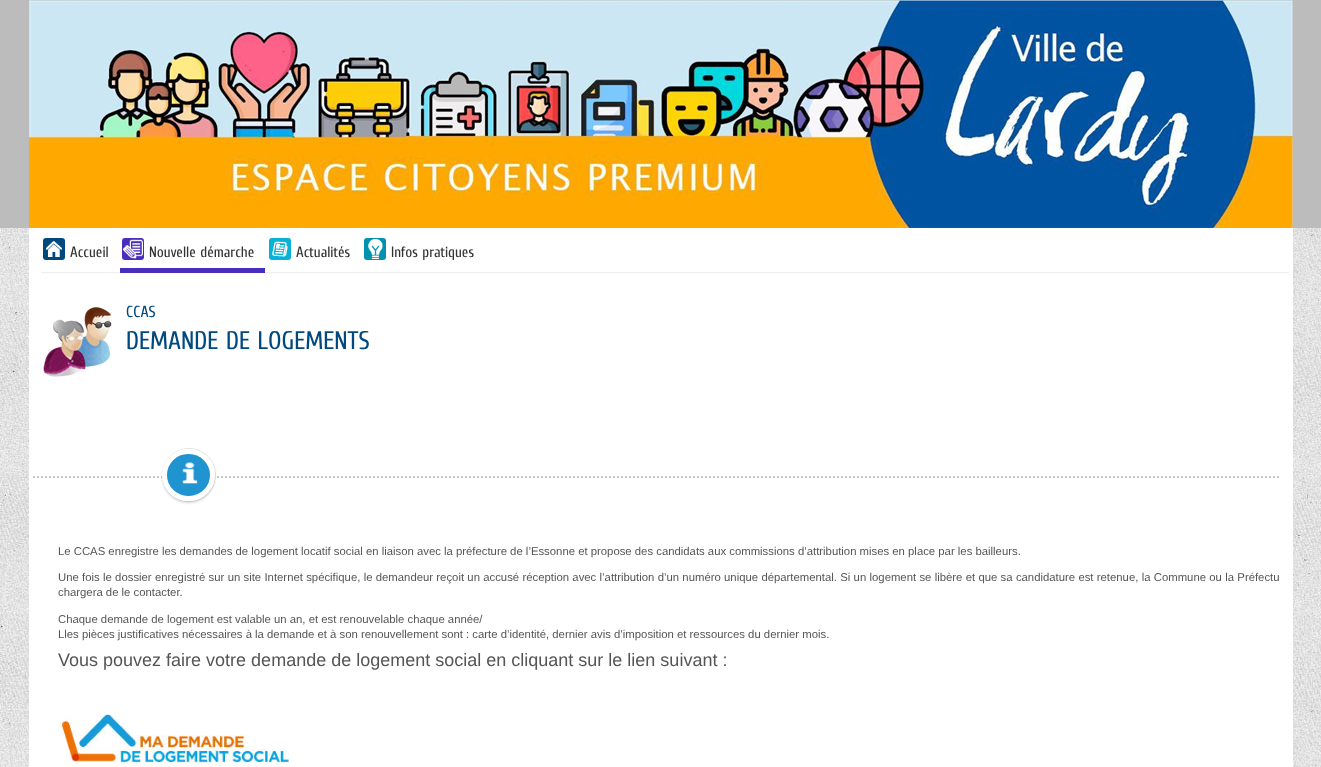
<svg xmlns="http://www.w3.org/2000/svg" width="1321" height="767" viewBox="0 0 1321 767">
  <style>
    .t1 { font: 15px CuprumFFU; fill: #333; }
    .t2 { font: 16px CuprumFFU; fill: #00497e; }
    .t3 { font: 25.5px CuprumFFU; fill: #00497e; }
    .t4 { font: 11.33px Liberation Sans; fill: #555; }
    .t5 { font: 18px Liberation Sans; fill: #555; }
  </style>
  <rect width="100%" height="100%" fill="#fff"/>
  <image x="0" y="228" width="1321" height="539" href="images/1.png"/>
  <rect x="0" y="0" width="1321" height="228" fill="#bcbcbc"/>
  <image x="29" y="0" width="1264" height="228" href="images/2.png"/>
  <rect x="29" y="228" width="1264" height="539" fill="#fff"/>
  <rect x="41" y="272" width="1248" height="1" fill="#eee"/>
  <rect x="43" y="238" width="22" height="22" rx="3" fill="#00497e"/>
  <image x="46" y="241" width="16" height="16" href="images/3.png"/>
  <text x="70" y="257" class="t1">Accueil</text>
  <rect x="120" y="268" width="145" height="5" fill="#492ebe"/>
  <rect x="122" y="238" width="22" height="22" rx="3" fill="#492ebe"/>
  <image x="123" y="239" width="20" height="20" href="images/4.png"/>
  <text x="149" y="257" class="t1">Nouvelle démarche</text>
  <rect x="269" y="238" width="22" height="22" rx="3" fill="#08b2d6"/>
  <image x="272" y="241" width="16" height="16" href="images/5.png"/>
  <text x="296" y="257" class="t1">Actualités</text>
  <rect x="364" y="238" width="22" height="22" rx="3" fill="#0092af"/>
  <image x="368" y="239" width="15" height="20" href="images/6.png"/>
  <text x="391" y="257" class="t1">Infos pratiques</text>
  <image x="43" y="307" width="69" height="70" href="images/7.png"/>
  <text x="126" y="317" class="t2">CCAS</text>
  <text x="126" y="349" class="t3">DEMANDE DE LOGEMENTS</text>
  <image x="33" y="476" width="1246" height="2" href="images/8.png"/>
  <rect x="162" y="451" width="53" height="52" rx="26" fill="#00000026" filter="blur(1px)"/>
  <circle cx="189" cy="475" r="26.55" fill="none" stroke="#62626233" stroke-width="0.9"/>
  <rect x="164.5" y="451.5" width="48" height="47" rx="23.5" fill="#2094d1" stroke="#fff" stroke-width="5"/>
  <image x="182" y="462" width="16" height="22" href="images/9.png"/>
  <text x="58" y="555" class="t4">Le CCAS enregistre les demandes de logement locatif social en liaison avec la préfecture de l’Essonne et propose des candidats aux commissions d’attribution mises en place par les bailleurs.</text>
  <text x="58" y="581" word-spacing="0.15" class="t4">Une fois le dossier enregistré sur un site Internet spécifique, le demandeur reçoit un accusé réception avec l’attribution d’un numéro unique départemental. Si un logement se libère et que sa candidature est retenue, la Commune ou la Préfectu</text>
  <text x="58" y="596" class="t4">chargera de le contacter.</text>
  <text x="58" y="623" class="t4">Chaque demande de logement est valable un an, et est renouvelable chaque année/</text>
  <text x="58" y="638" class="t4">Lles pièces justificatives nécessaires à la demande et à son renouvellement sont : carte d’identité, dernier avis d’imposition et ressources du dernier mois.</text>
  <text x="58" y="666" class="t5">Vous pouvez faire votre demande de logement social en cliquant sur le lien suivant :</text>
  <image x="58" y="714" width="231" height="49" href="images/10.png"/>
</svg>
